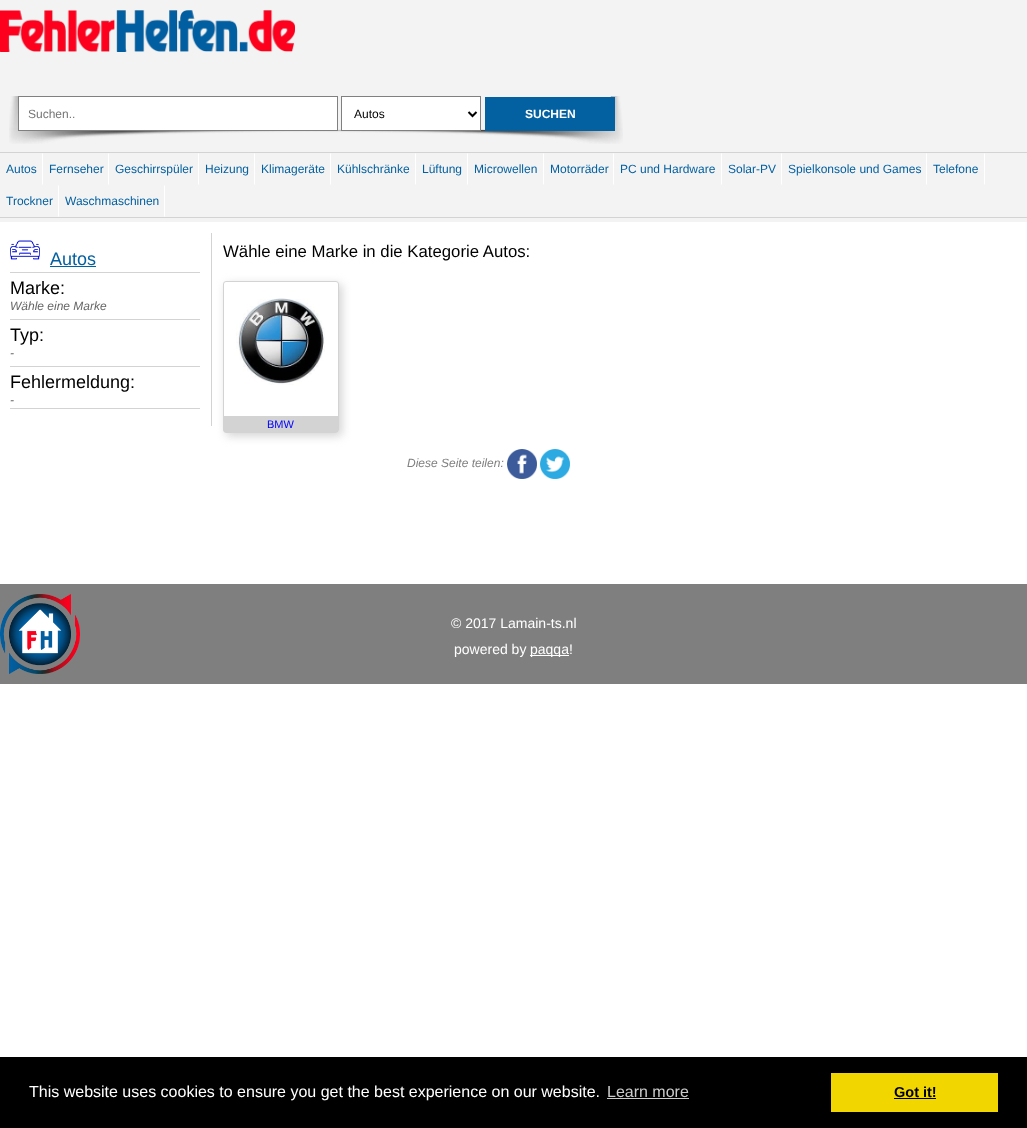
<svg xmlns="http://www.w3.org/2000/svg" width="1027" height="1128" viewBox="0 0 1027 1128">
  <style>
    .t1 { font: 12px Liberation Sans; fill: #757575; }
    .t2 { font: 12px Liberation Sans; fill: #000; }
    .t3 { font: bold 12px Liberation Sans; fill: #fff; }
    .t4 { font: 12px Liberation Sans; fill: #0360a1; }
    .t5 { font: 18px Liberation Sans; fill: #0360a1; }
    .t6 { font: 18px Liberation Sans; fill: #000; }
    .t7 { font: italic 12px Liberation Sans; fill: #666; }
    .t8 { font: 16.75px Liberation Sans; fill: #000; }
    .t9 { font: 11px Liberation Sans; fill: #00f; }
    .t10 { font: italic 12px Liberation Sans; fill: #808080; }
    .t11 { font: 14px Liberation Sans; fill: #fff; }
    .t12 { font: 16px Liberation Sans; fill: #fff; }
    .t13 { font: 16px Liberation Sans; fill: #ccc; }
    .t14 { font: bold 14.5px Liberation Sans; fill: #000; }
  </style>
  <defs>
    <clipPath id="clip1"><path d="M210 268H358V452H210ZM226 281H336C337.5 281 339 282.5 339 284V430C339 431.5 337.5 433 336 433H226C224.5 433 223 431.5 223 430V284C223 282.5 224.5 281 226 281Z" clip-rule="evenodd"/></clipPath>
  </defs>
  <rect width="100%" height="100%" fill="#fff"/>
  <rect x="0" y="0" width="1027" height="222" fill="#f3f3f3"/>
  <image x="0" y="10" width="295" height="42" href="images/1.png"/>
  <image x="9" y="96" width="614" height="48" href="images/2.png"/>
  <rect x="18.5" y="96.5" width="319" height="34" fill="#fff" stroke="#808080"/>
  <text x="28" y="118" class="t1">Suchen..</text>
  <rect x="341.5" y="96.5" width="139" height="34" fill="#fff" stroke="#808080"/>
  <path d="M468.5 112L472.5 116L476.5 112" fill="none" stroke="#000" stroke-width="2"/>
  <text x="354" y="118" class="t2">Autos</text>
  <rect x="485" y="97" width="130" height="34" fill="#0360a1"/>
  <text x="525" y="118" class="t3">SUCHEN</text>
  <rect x="0" y="152" width="1027" height="1" fill="#d3d3d3"/>
  <rect x="0" y="217" width="1027" height="1" fill="#d3d3d3"/>
  <path d="M43 153V185L42 184V154Z" fill="#fff"/>
  <text x="6" y="173" class="t4">Autos</text>
  <path d="M109 153V185L108 184V154Z" fill="#fff"/>
  <text x="49" y="173" class="t4">Fernseher</text>
  <path d="M199 153V185L198 184V154Z" fill="#fff"/>
  <text x="115" y="173" class="t4">Geschirrspüler</text>
  <path d="M255 153V185L254 184V154Z" fill="#fff"/>
  <text x="205" y="173" class="t4">Heizung</text>
  <path d="M331 153V185L330 184V154Z" fill="#fff"/>
  <text x="261" y="173" class="t4">Klimageräte</text>
  <path d="M416 153V185L415 184V154Z" fill="#fff"/>
  <text x="337" y="173" class="t4">Kühlschränke</text>
  <path d="M468 153V185L467 184V154Z" fill="#fff"/>
  <text x="422" y="173" class="t4">Lüftung</text>
  <path d="M544 153V185L543 184V154Z" fill="#fff"/>
  <text x="474" y="173" class="t4">Microwellen</text>
  <path d="M614 153V185L613 184V154Z" fill="#fff"/>
  <text x="550" y="173" class="t4">Motorräder</text>
  <path d="M722 153V185L721 184V154Z" fill="#fff"/>
  <text x="620" y="173" class="t4">PC und Hardware</text>
  <path d="M782 153V185L781 184V154Z" fill="#fff"/>
  <text x="728" y="173" class="t4">Solar-PV</text>
  <path d="M927 153V185L926 184V154Z" fill="#fff"/>
  <text x="788" y="173" class="t4">Spielkonsole und Games</text>
  <path d="M985 153V185L984 184V154Z" fill="#fff"/>
  <text x="933" y="173" class="t4">Telefone</text>
  <path d="M59 185V217L58 216V186Z" fill="#fff"/>
  <text x="6" y="205" class="t4">Trockner</text>
  <path d="M165 185V217L164 216V186Z" fill="#fff"/>
  <text x="65" y="205" class="t4">Waschmaschinen</text>
  <rect x="211" y="233" width="1" height="193" fill="#d3d3d3"/>
  <image x="10" y="240" width="30" height="20" href="images/3.png"/>
  <text x="50" y="265" class="t5">Autos</text>
  <rect x="50" y="266" width="46" height="1" fill="#0360a1"/>
  <rect x="10" y="272" width="190" height="1" fill="#d3d3d3"/>
  <text x="10" y="294" class="t6">Marke:</text>
  <text x="10" y="310" class="t7">Wähle eine Marke</text>
  <rect x="10" y="319" width="190" height="1" fill="#d3d3d3"/>
  <text x="10" y="341" class="t6">Typ:</text>
  <text x="10" y="357" class="t7">-</text>
  <rect x="10" y="366" width="190" height="1" fill="#d3d3d3"/>
  <rect x="10" y="408" width="190" height="1" fill="#d3d3d3"/>
  <text x="10" y="388" class="t6">Fehlermeldung:</text>
  <text x="10" y="404" class="t7">-</text>
  <text x="223" y="257" class="t8">Wähle eine Marke in die Kategorie Autos:</text>
  <g clip-path="url(#clip1)">
    <rect x="226" y="284" width="116" height="152" rx="3" fill="#d3d3d3" filter="blur(5px)"/>
  </g>
  <rect x="223.5" y="281.5" width="115" height="151" rx="2.5" fill="none" stroke="#d3d3d3"/>
  <image x="236" y="298" width="89" height="87" href="images/4.png"/>
  <rect x="224" y="416" width="114" height="16" fill="#d3d3d3"/>
  <text x="267" y="428" class="t9">BMW</text>
  <text x="407" y="467" class="t10">Diese Seite teilen:</text>
  <image x="507" y="449" width="30" height="30" href="images/5.png"/>
  <image x="540" y="449" width="30" height="30" href="images/6.png"/>
  <rect x="0" y="584" width="1027" height="100" fill="#7f7f7f"/>
  <image x="0" y="594" width="80" height="80" href="images/7.png"/>
  <text x="451" y="628" class="t11">© 2017 Lamain-ts.nl</text>
  <text x="454" y="654" class="t11">powered by</text>
  <rect x="530" y="655" width="39" height="1" fill="#fff"/>
  <text x="530" y="654" class="t11">paqqa!</text>
  <rect x="0" y="1057" width="1027" height="71" fill="#000"/>
  <text x="29" y="1097" class="t12">This website uses cookies to ensure you get the best experience on our website.</text>
  <text x="607" y="1097" class="t13">Learn more</text>
  <rect x="607" y="1098" width="82" height="1" fill="#ccc"/>
  <rect x="831" y="1073" width="167" height="39" fill="#f1d600"/>
  <text x="894" y="1097" class="t14">Got it!</text>
  <rect x="894" y="1098" width="42" height="1" fill="#000"/>
</svg>
